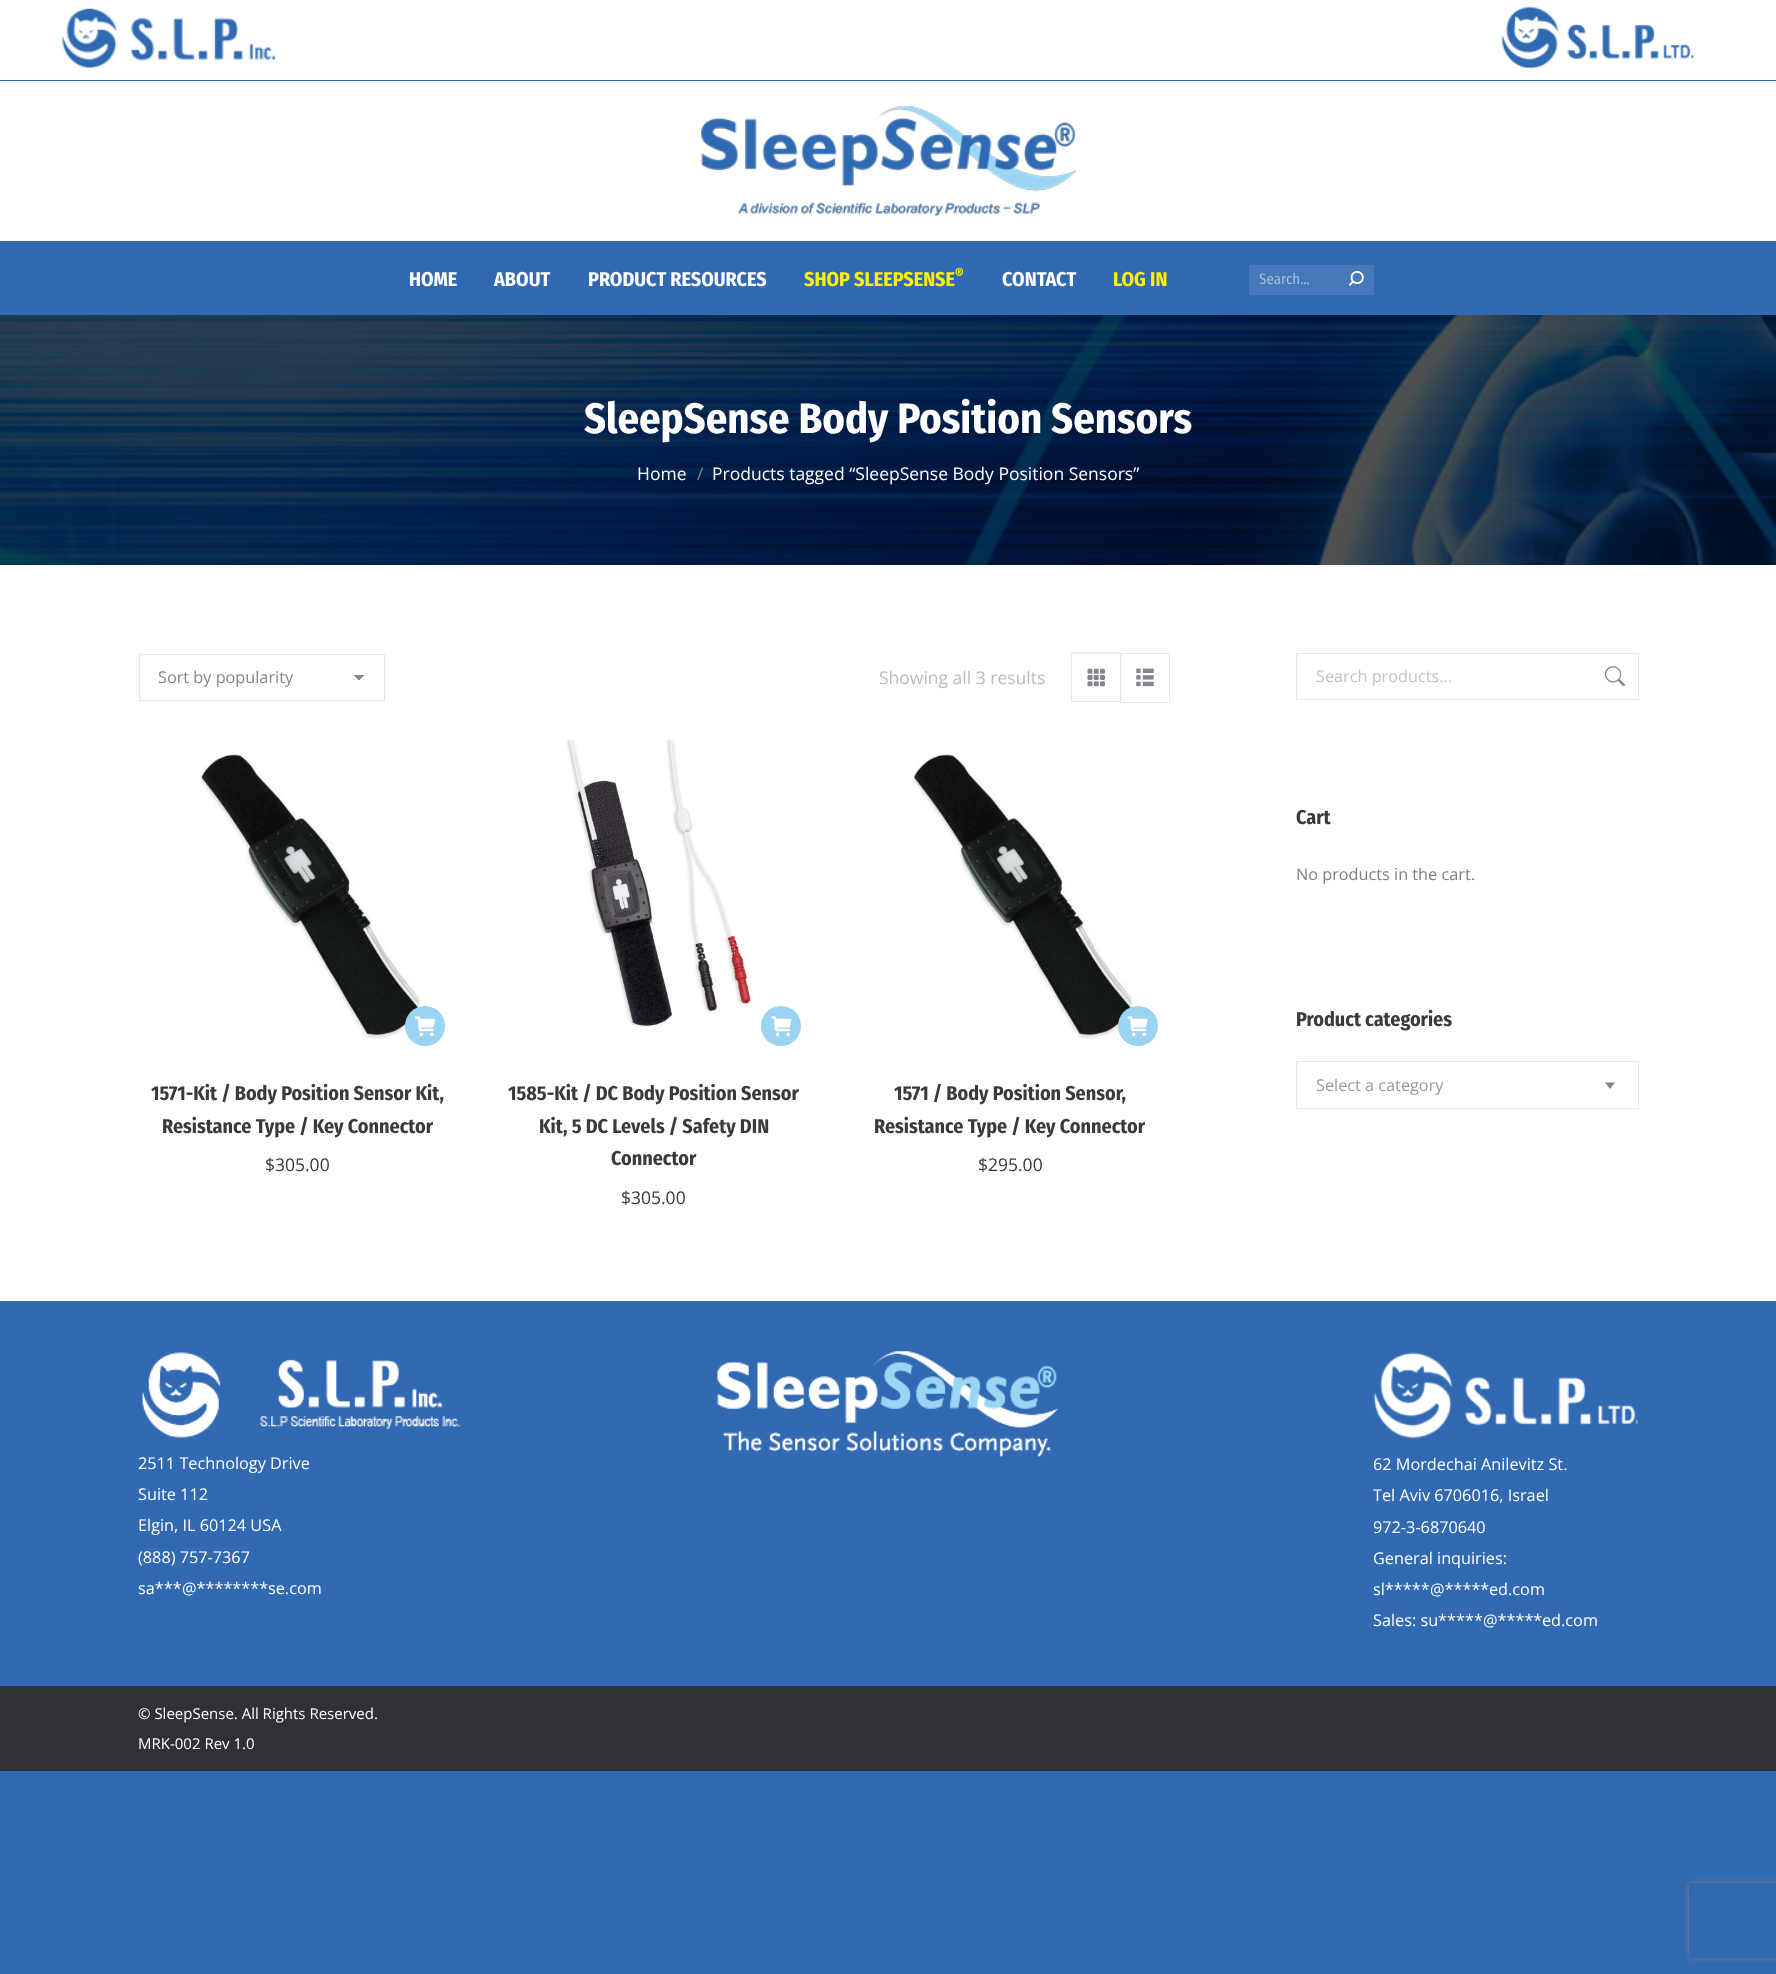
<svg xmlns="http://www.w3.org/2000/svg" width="1776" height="1974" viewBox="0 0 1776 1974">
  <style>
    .t1 { font: bold 20px Fira Sans Condensed; fill: #fff; }
    .t2 { font: bold 20px Fira Sans Condensed; fill: #fff200; }
    .t3 { font: bold 15px Fira Sans Condensed; fill: #fff200; }
    .t4 { font: 15px Fira Sans Condensed; fill: #a3bcdd; }
    .t5 { font: bold 42.5px Fira Sans Condensed; fill: #fff; }
    .t6 { font: 17.5px Open Sans; fill: #fff; }
    .t7 { font: 17.5px Open Sans; fill: #808fa4; }
    .t8 { font: 16.25px Open Sans; fill: #85868c; }
    .t9 { font: 17.5px Open Sans; fill: #bbb; }
    .t10 { font: bold 20px Fira Sans Condensed; fill: #3a3a3a; }
    .t11 { font: 17.5px Open Sans; fill: #3a3a3a; }
    .t12 { font: 16.25px Open Sans; fill: #c1c2c5; }
    .t13 { font: 16.25px Open Sans; fill: #7e7e7e; }
    .t14 { font: 16.25px Open Sans; fill: #999; }
    .t15 { font: 16.25px Open Sans; fill: #fff; }
    .t16 { font: 15px Open Sans; fill: #fff; }
  </style>
  <defs>
    <linearGradient id="g1" gradientUnits="userSpaceOnUse" x1="359" y1="674" x2="365" y2="681"><stop offset="0.5" stop-color="#85868c"/><stop offset="0.5" stop-color="#fdfdfd"/></linearGradient>
    <linearGradient id="g2" gradientUnits="userSpaceOnUse" x1="353" y1="681" x2="359" y2="674"><stop offset="0.5" stop-color="#fdfdfd"/><stop offset="0.5" stop-color="#85868c"/></linearGradient>
    <clipPath id="clip1"><path d="M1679 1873H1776V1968H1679ZM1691.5 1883H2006.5C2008 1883 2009 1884 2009 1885.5V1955.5C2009 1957 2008 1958 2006.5 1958H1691.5C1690 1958 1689 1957 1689 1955.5V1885.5C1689 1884 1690 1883 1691.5 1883Z" clip-rule="evenodd"/></clipPath>
  </defs>
  <rect width="100%" height="100%" fill="#3169b2"/>
  <rect x="0" y="0" width="1776" height="1301" fill="#fff"/>
  <image x="62" y="8" width="213" height="60" href="images/1.png"/>
  <image x="1501" y="6" width="193" height="63" href="images/2.png"/>
  <rect x="0" y="80" width="1776" height="1" fill="#3169b2"/>
  <image x="701" y="106" width="376" height="111" href="images/3.png"/>
  <rect x="0" y="241" width="1776" height="74" fill="#3169b2"/>
  <text x="409" y="286" class="t1">HOME</text>
  <text x="494" y="286" class="t1">ABOUT</text>
  <text x="588" y="286" class="t1">PRODUCT RESOURCES</text>
  <text x="804" y="286" class="t2">SHOP SLEEPSENSE</text>
  <text x="955" y="279" class="t3">®</text>
  <text x="1002" y="286" class="t1">CONTACT</text>
  <text x="1113" y="286" class="t2">LOG IN</text>
  <rect x="1249" y="265" width="125" height="30" fill="#4678ba"/>
  <text x="1259" y="284" class="t4">Search...</text>
  <image x="1348" y="270" width="16" height="16" href="images/4.png"/>
  <image x="0" y="315" width="1776" height="250" href="images/5.png"/>
  <text x="584" y="433" class="t5">SleepSense Body Position Sensors</text>
  <text x="637" y="480" class="t6">Home</text>
  <text x="697" y="480" class="t7">/</text>
  <text x="712" y="480" class="t6">Products tagged “SleepSense Body Position Sensors”</text>
  <rect x="359" y="675" width="6" height="5" fill="url(#g1)"/>
  <rect x="353" y="675" width="6" height="5" fill="url(#g2)"/>
  <rect x="139.5" y="654.5" width="245" height="46" fill="none" stroke="#e8e8e8"/>
  <text x="158" y="683" class="t8">Sort by popularity</text>
  <text x="879" y="684" class="t9">Showing all 3 results</text>
  <path d="M1071 652H1120V654H1072Z" fill="#e9e9e9"/>
  <path d="M1120 702H1071L1072 701H1120Z" fill="#e8e8e8"/>
  <path d="M1071 702V652L1072 654V701Z" fill="#aaaaaa40"/>
  <image x="1087" y="668" width="18" height="19" href="images/6.png"/>
  <rect x="1120.5" y="653.5" width="49" height="49" fill="none" stroke="#e8e8e8"/>
  <image x="1136" y="668" width="18" height="19" href="images/7.png"/>
  <image x="199" y="754" width="221" height="285" href="images/8.png"/>
  <circle cx="425" cy="1026" r="20" fill="#9bd3f3"/>
  <image x="415" y="1016" width="20" height="21" href="images/9.png"/>
  <text x="151" y="1100" class="t10">1571-Kit / Body Position Sensor Kit,</text>
  <text x="162" y="1133" class="t10">Resistance Type / Key Connector</text>
  <text x="265" y="1171" class="t11">$305.00</text>
  <image x="566" y="740" width="185" height="288" href="images/10.png"/>
  <circle cx="781" cy="1026" r="20" fill="#9bd3f3"/>
  <image x="771" y="1016" width="21" height="21" href="images/11.png"/>
  <text x="508" y="1100" class="t10">1585-Kit / DC Body Position Sensor</text>
  <text x="539" y="1133" class="t10">Kit, 5 DC Levels / Safety DIN</text>
  <text x="611" y="1165" class="t10">Connector</text>
  <text x="621" y="1204" class="t11">$305.00</text>
  <image x="911" y="754" width="221" height="285" href="images/12.png"/>
  <circle cx="1138" cy="1026" r="20" fill="#9bd3f3"/>
  <image x="1127" y="1016" width="21" height="21" href="images/13.png"/>
  <text x="894" y="1100" class="t10">1571 / Body Position Sensor,</text>
  <text x="874" y="1133" class="t10">Resistance Type / Key Connector</text>
  <text x="978" y="1171" class="t11">$295.00</text>
  <rect x="1296.5" y="653.5" width="342" height="46" fill="none" stroke="#e8e8e8"/>
  <text x="1316" y="682" class="t12">Search products…</text>
  <image x="1605" y="666" width="20" height="20" href="images/14.png"/>
  <text x="1296" y="824" class="t10">Cart</text>
  <text x="1296" y="880" class="t13">No products in the cart.</text>
  <text x="1296" y="1026" class="t10">Product categories</text>
  <rect x="1296.5" y="1061.5" width="342" height="47" fill="none" stroke="#e8e8e8"/>
  <text x="1316" y="1091" class="t14">Select a category</text>
  <path d="M1605 1082.5H1615L1610 1089Z" fill="#85868c"/>
  <image x="717" y="1351" width="341" height="106" href="images/15.png"/>
  <image x="142" y="1352" width="319" height="86" href="images/16.png"/>
  <text x="138" y="1469" class="t15">2511 Technology Drive</text>
  <text x="138" y="1500" class="t15">Suite 112</text>
  <text x="138" y="1531" class="t15">Elgin, IL 60124 USA</text>
  <text x="138" y="1563" class="t15">(888) 757-7367</text>
  <text x="138" y="1594" class="t15">sa***</text>
  <text x="182" y="1594" class="t15">@********</text>
  <text x="268" y="1594" class="t15">se.com</text>
  <image x="1373" y="1352" width="265" height="87" href="images/17.png"/>
  <text x="1373" y="1470" class="t15">62 Mordechai Anilevitz St.</text>
  <text x="1373" y="1501" class="t15">Tel Aviv 6706016, Israel</text>
  <text x="1373" y="1533" class="t15">972-3-6870640</text>
  <text x="1373" y="1564" class="t15">General inquiries:</text>
  <text x="1373" y="1595" class="t15">sl*****</text>
  <text x="1430" y="1595" class="t15">@*****</text>
  <text x="1489" y="1595" class="t15">ed.com</text>
  <text x="1373" y="1626" class="t15">Sales: su*****</text>
  <text x="1483" y="1626" class="t15">@*****</text>
  <text x="1542" y="1626" class="t15">ed.com</text>
  <rect x="0" y="1686" width="1776" height="85" fill="#303135"/>
  <text x="138" y="1719" class="t16">© SleepSense. All Rights Reserved.</text>
  <text x="138" y="1749" class="t16">MRK-002 Rev 1.0</text>
  <g clip-path="url(#clip1)">
    <rect x="1689" y="1883" width="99" height="75" rx="2.5" fill="#808080" filter="blur(3px)"/>
  </g>
</svg>
